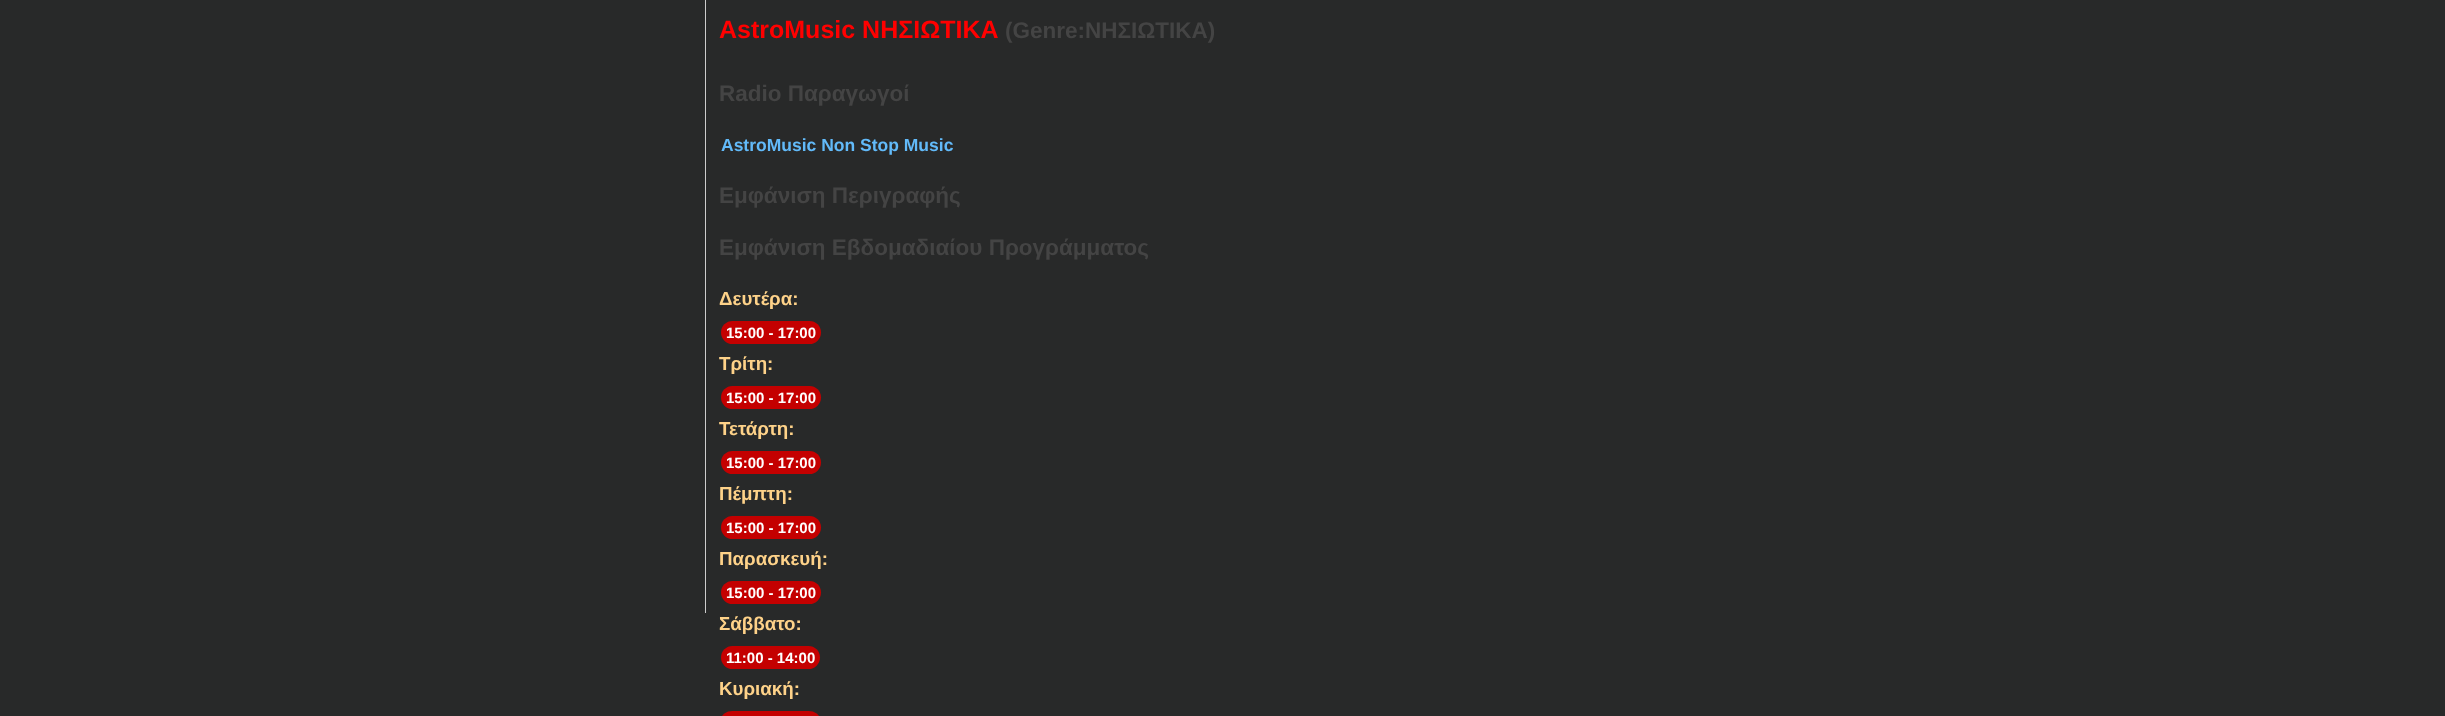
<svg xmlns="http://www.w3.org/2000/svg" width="2445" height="716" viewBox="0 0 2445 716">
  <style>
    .t1 { font: bold 25px Liberation Sans; fill: #f00; }
    .t2 { font: bold 22.5px Liberation Sans; fill: #444; }
    .t3 { font: bold 17.5px Liberation Sans; fill: #62baf9; }
    .t4 { font: bold 18.75px Liberation Sans; fill: #fed289; }
    .t5 { font: bold 15px Liberation Sans; fill: #fff; }
  </style>
  <rect width="100%" height="100%" fill="#282929"/>
  <rect x="705" y="0" width="1" height="613" fill="#ccc"/>
  <text x="719" y="38" class="t1">AstroMusic ΝΗΣΙΩΤΙΚΑ</text>
  <text x="1005" y="38" class="t2">(Genre:ΝΗΣΙΩΤΙΚΑ)</text>
  <text x="719" y="101" class="t2">Radio Παραγωγοί</text>
  <text x="721" y="151" class="t3">AstroMusic Non Stop Music</text>
  <text x="719" y="203" class="t2">Εμφάνιση Περιγραφής</text>
  <text x="719" y="255" class="t2">Εμφάνιση Εβδομαδιαίου Προγράμματος</text>
  <text x="719" y="305" class="t4">Δευτέρα:</text>
  <rect x="721" y="321" width="100" height="23" rx="11.5" fill="#c40000"/>
  <text x="726" y="338" class="t5">15:00 - 17:00</text>
  <text x="719" y="370" class="t4">Τρίτη:</text>
  <rect x="721" y="386" width="100" height="23" rx="11.5" fill="#c40000"/>
  <text x="726" y="403" class="t5">15:00 - 17:00</text>
  <text x="719" y="435" class="t4">Τετάρτη:</text>
  <rect x="721" y="451" width="100" height="23" rx="11.5" fill="#c40000"/>
  <text x="726" y="468" class="t5">15:00 - 17:00</text>
  <text x="719" y="500" class="t4">Πέμπτη:</text>
  <rect x="721" y="516" width="100" height="23" rx="11.5" fill="#c40000"/>
  <text x="726" y="533" class="t5">15:00 - 17:00</text>
  <text x="719" y="565" class="t4">Παρασκευή:</text>
  <rect x="721" y="581" width="100" height="23" rx="11.5" fill="#c40000"/>
  <text x="726" y="598" class="t5">15:00 - 17:00</text>
  <text x="719" y="630" class="t4">Σάββατο:</text>
  <rect x="721" y="646" width="99" height="23" rx="11.5" fill="#c40000"/>
  <text x="726" y="663" class="t5">11:00 - 14:00</text>
  <text x="719" y="695" class="t4">Κυριακή:</text>
  <rect x="721" y="711" width="99" height="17" rx="11.5" fill="#c40000"/>
</svg>
